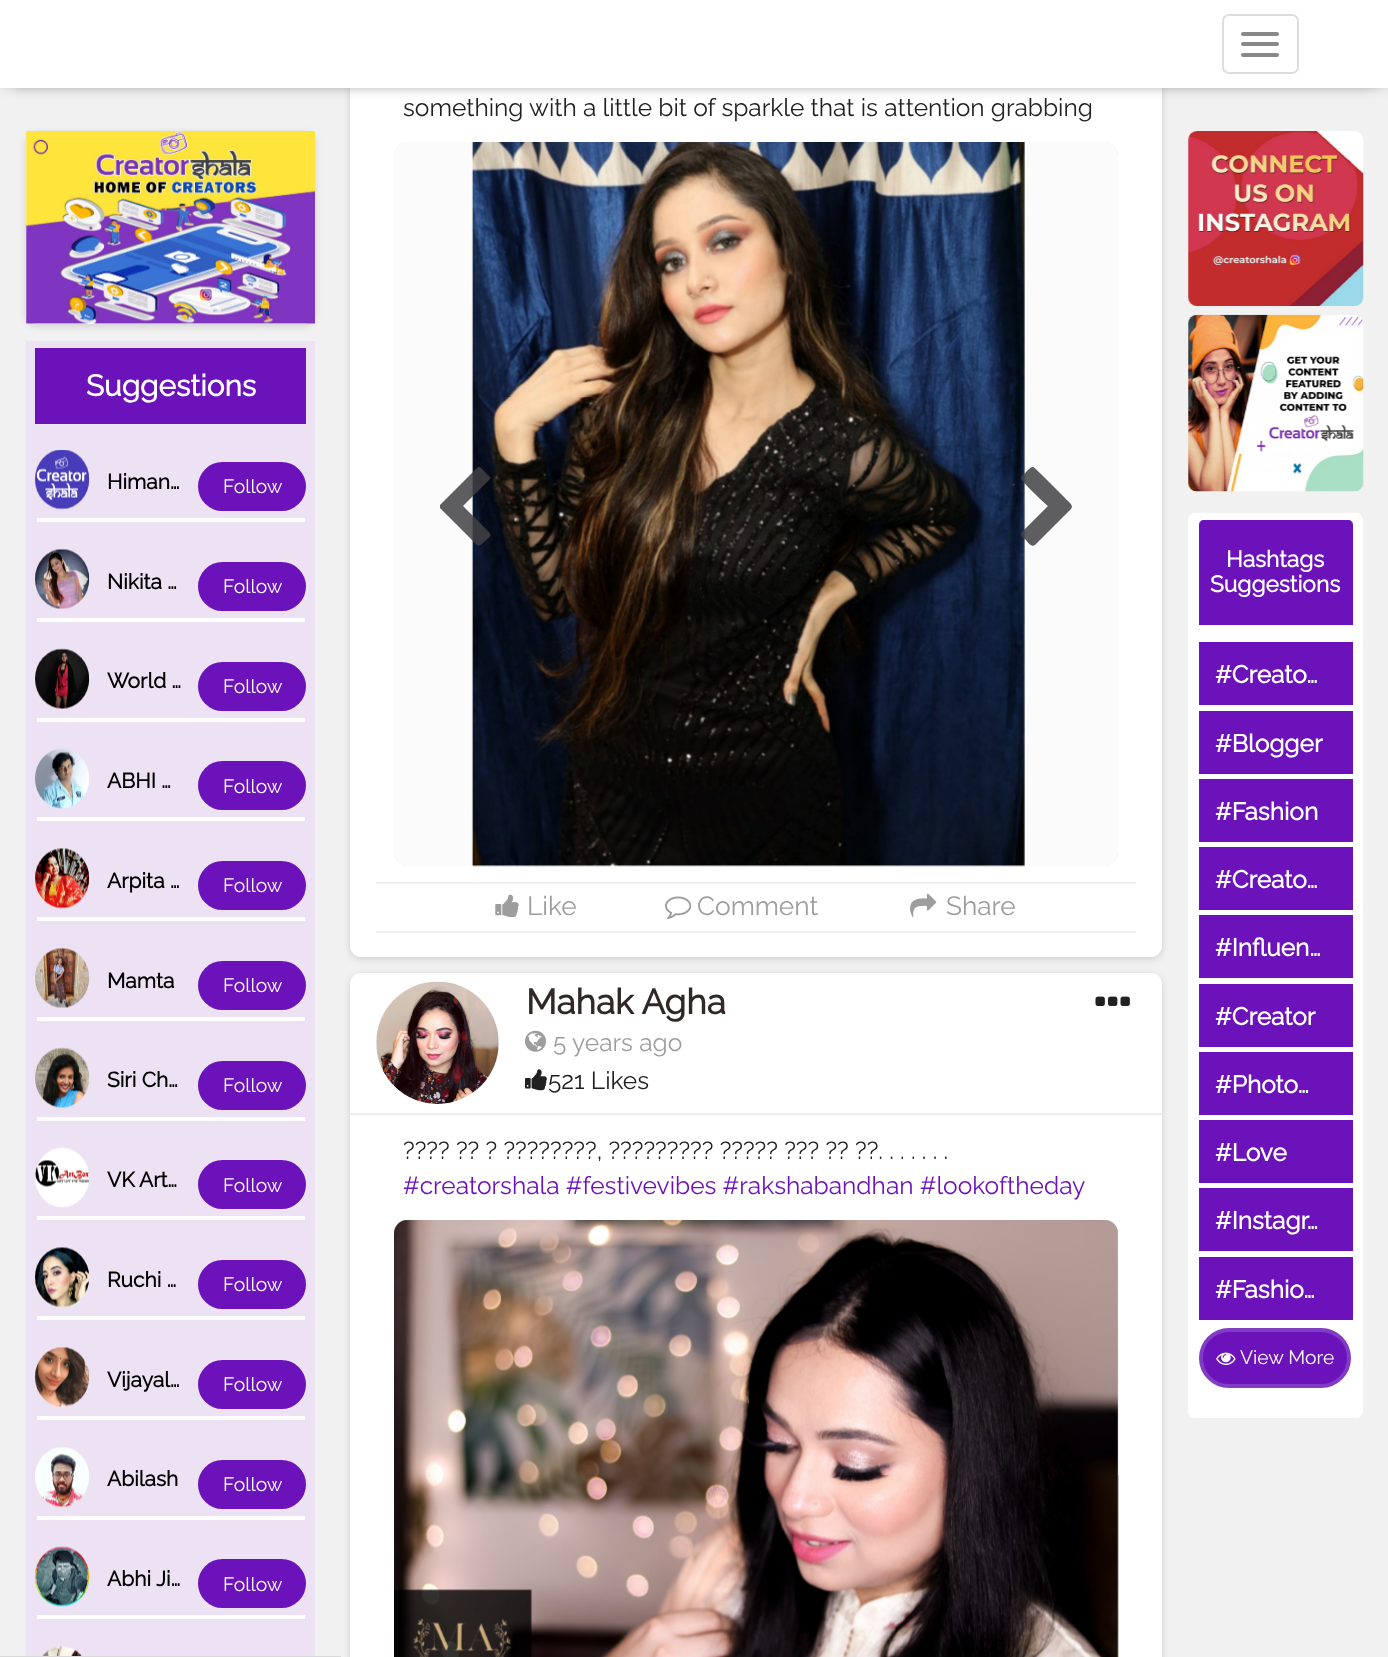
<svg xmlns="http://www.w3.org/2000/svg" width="1388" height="1657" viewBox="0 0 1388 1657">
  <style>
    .t1 { font: bold 29.75px Raleway; fill: #fff; }
    .t2 { font: bold 21px Raleway; fill: #000; }
    .t3 { font: 100 19.25px Raleway; fill: #fff; }
    .t4 { font: 100 24.5px Raleway; fill: #212121; }
    .t5 { font: 100 26.25px Raleway; fill: #9d9d9d; }
    .t6 { font: bold 35px Raleway; fill: #302825; }
    .t7 { font: 100 24.5px Raleway; fill: #9d9d9d; }
    .t8 { font: 100 24.5px Raleway; fill: #6c12bb; }
    .t9 { font: bold 22.75px Raleway; fill: #fff; }
    .t10 { font: bold 24.5px Raleway; fill: #fff; }
  </style>
  <defs>
    <clipPath id="clip1"><rect x="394" y="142" width="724" height="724" rx="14"/></clipPath>
    <clipPath id="clip2"><rect x="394" y="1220" width="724" height="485" rx="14"/></clipPath>
  </defs>
  <rect width="100%" height="100%" fill="#f1f1f1"/>
  <rect x="350" y="-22" width="812" height="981" rx="11" fill="#00000024" filter="blur(3.5px)"/>
  <rect x="350" y="-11" width="812" height="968" rx="11" fill="#fff"/>
  <rect x="9" y="9" width="1372" height="70" fill="#000" filter="blur(9px)"/>
  <rect x="0" y="0" width="1388" height="88" fill="#fff"/>
  <rect x="1223" y="15" width="75" height="58" rx="6" fill="none" stroke="#ddd" stroke-width="2"/>
  <rect x="1241" y="32" width="38" height="4" rx="2" fill="#888"/>
  <rect x="1241" y="42" width="38" height="4" rx="2" fill="#888"/>
  <rect x="1241" y="53" width="38" height="4" rx="2" fill="#888"/>
  <rect x="350" y="975" width="812" height="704" rx="11" fill="#00000024" filter="blur(3.5px)"/>
  <rect x="0" y="1656" width="341" height="1" fill="#d9d9d9"/>
  <rect x="26" y="133" width="289" height="193" rx="11" fill="#00000024" filter="blur(3.5px)"/>
  <rect x="26" y="131" width="289" height="193" rx="11" fill="#fff"/>
  <image x="26" y="131" width="289" height="193" href="images/1.png"/>
  <rect x="26" y="341" width="289" height="1315" fill="#ede1f4"/>
  <rect x="35" y="348" width="271" height="76" fill="#6c12bb"/>
  <text x="86" y="396" class="t1">Suggestions</text>
  <image x="35" y="450" width="55" height="60" href="images/2.png"/>
  <text x="107" y="489" class="t2">Himan…</text>
  <rect x="198" y="462" width="108" height="49" rx="24.5" fill="#6c12bb"/>
  <text x="223" y="493" class="t3">Follow</text>
  <rect x="37" y="518" width="268" height="4" fill="#fff"/>
  <image x="35" y="548" width="55" height="61" href="images/3.png"/>
  <text x="107" y="589" class="t2">Nikita …</text>
  <rect x="198" y="562" width="108" height="49" rx="24.5" fill="#6c12bb"/>
  <text x="223" y="593" class="t3">Follow</text>
  <rect x="37" y="618" width="268" height="4" fill="#fff"/>
  <image x="35" y="648" width="55" height="61" href="images/4.png"/>
  <text x="107" y="688" class="t2">World …</text>
  <rect x="198" y="662" width="108" height="49" rx="24.5" fill="#6c12bb"/>
  <text x="223" y="693" class="t3">Follow</text>
  <rect x="37" y="718" width="268" height="4" fill="#fff"/>
  <image x="35" y="748" width="54" height="61" href="images/5.png"/>
  <text x="107" y="788" class="t2">ABHI …</text>
  <rect x="198" y="761" width="108" height="49" rx="24.5" fill="#6c12bb"/>
  <text x="223" y="793" class="t3">Follow</text>
  <rect x="37" y="817" width="268" height="4" fill="#fff"/>
  <image x="35" y="848" width="55" height="61" href="images/6.png"/>
  <text x="107" y="888" class="t2">Arpita …</text>
  <rect x="198" y="861" width="108" height="49" rx="24.5" fill="#6c12bb"/>
  <text x="223" y="892" class="t3">Follow</text>
  <rect x="37" y="917" width="268" height="4" fill="#fff"/>
  <image x="35" y="947" width="55" height="61" href="images/7.png"/>
  <text x="107" y="988" class="t2">Mamta</text>
  <rect x="198" y="961" width="108" height="49" rx="24.5" fill="#6c12bb"/>
  <text x="223" y="992" class="t3">Follow</text>
  <rect x="37" y="1017" width="268" height="4" fill="#fff"/>
  <image x="35" y="1047" width="55" height="61" href="images/8.png"/>
  <text x="107" y="1087" class="t2">Siri Ch…</text>
  <rect x="198" y="1061" width="108" height="49" rx="24.5" fill="#6c12bb"/>
  <text x="223" y="1092" class="t3">Follow</text>
  <rect x="37" y="1117" width="268" height="4" fill="#fff"/>
  <image x="35" y="1147" width="54" height="61" href="images/9.png"/>
  <text x="107" y="1187" class="t2">VK</text>
  <text x="139" y="1187" class="t2">Art…</text>
  <rect x="198" y="1160" width="108" height="49" rx="24.5" fill="#6c12bb"/>
  <text x="223" y="1192" class="t3">Follow</text>
  <rect x="37" y="1216" width="268" height="4" fill="#fff"/>
  <image x="35" y="1247" width="54" height="61" href="images/10.png"/>
  <text x="107" y="1287" class="t2">Ruchi …</text>
  <rect x="198" y="1260" width="108" height="49" rx="24.5" fill="#6c12bb"/>
  <text x="223" y="1291" class="t3">Follow</text>
  <rect x="37" y="1316" width="268" height="4" fill="#fff"/>
  <image x="35" y="1347" width="54" height="60" href="images/11.png"/>
  <text x="107" y="1387" class="t2">Vijayal…</text>
  <rect x="198" y="1360" width="108" height="49" rx="24.5" fill="#6c12bb"/>
  <text x="223" y="1391" class="t3">Follow</text>
  <rect x="37" y="1416" width="268" height="4" fill="#fff"/>
  <image x="35" y="1447" width="54" height="60" href="images/12.png"/>
  <text x="107" y="1486" class="t2">Abilash</text>
  <rect x="198" y="1460" width="108" height="49" rx="24.5" fill="#6c12bb"/>
  <text x="223" y="1491" class="t3">Follow</text>
  <rect x="37" y="1516" width="268" height="4" fill="#fff"/>
  <image x="35" y="1546" width="55" height="61" href="images/13.png"/>
  <text x="107" y="1586" class="t2">Abhi</text>
  <text x="156" y="1586" class="t2">Ji…</text>
  <rect x="198" y="1559" width="108" height="49" rx="24.5" fill="#6c12bb"/>
  <text x="223" y="1591" class="t3">Follow</text>
  <rect x="37" y="1615" width="268" height="4" fill="#fff"/>
  <image x="42" y="1646" width="40" height="10" href="images/14.png"/>
  <text x="403" y="116" class="t4">something with a little bit of sparkle that is attention grabbing</text>
  <g clip-path="url(#clip1)">
    <rect x="396" y="144" width="721" height="721" rx="12" fill="#9d9d9d" filter="blur(6px)"/>
  </g>
  <rect x="394" y="142" width="724" height="724" rx="14" fill="#fbfbfb"/>
  <image x="471" y="142" width="554" height="725" href="images/15.png"/>
  <path d="M489 480L463 506L485 528C493 536 492 535 484 542C478 548 478 546 471 539L440 508V505L477 468C480 465 482 469 484 471L490 477C491 478 490 479 489 480Z" fill="#424143d9"/>
  <path d="M1071 509L1035 545C1031 548 1027 541 1025 539C1023 538 1019 535 1022 532L1048 506C1044 503 1021 481 1021 478C1021 476 1025 474 1026 472C1034 464 1032 466 1041 474L1065 498C1065 499 1072 503 1072 507Z" fill="#424143d9"/>
  <rect x="376" y="882" width="760" height="2" fill="#f0f0f0"/>
  <rect x="376" y="931" width="760" height="2" fill="#f0f0f0"/>
  <image x="495" y="894" width="24" height="24" href="images/16.png"/>
  <text x="527" y="915" class="t5">Like</text>
  <image x="665" y="896" width="27" height="23" href="images/17.png"/>
  <text x="697" y="915" class="t5">Comment</text>
  <image x="910" y="893" width="27" height="24" href="images/18.png"/>
  <text x="946" y="915" class="t5">Share</text>
  <rect x="350" y="973" width="812" height="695" rx="11" fill="#fff"/>
  <rect x="350" y="1113" width="812" height="2" fill="#ededed"/>
  <image x="376" y="981" width="123" height="123" href="images/19.png"/>
  <text x="526" y="1014" class="t6">Mahak Agha</text>
  <image x="525" y="1030" width="21" height="22" href="images/20.png"/>
  <text x="553" y="1051" class="t7">5 years ago</text>
  <image x="525" y="1069" width="22" height="22" href="images/21.png"/>
  <text x="548" y="1089" class="t4">521 Likes</text>
  <image x="1095" y="996" width="35" height="10" href="images/22.png"/>
  <text x="403" y="1159" class="t4">???? ?? ? ????????, ????????? ????? ??? ?? ??. . . . . . .</text>
  <text x="403" y="1194" class="t8">#creatorshala #festivevibes #rakshabandhan #lookoftheday</text>
  <g clip-path="url(#clip2)">
    <rect x="396" y="1222" width="721" height="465" rx="12" fill="#9d9d9d" filter="blur(6px)"/>
  </g>
  <image x="394" y="1220" width="725" height="437" href="images/23.png"/>
  <image x="1188" y="131" width="176" height="175" href="images/24.png"/>
  <image x="1188" y="314" width="176" height="178" href="images/25.png"/>
  <rect x="1188" y="513" width="175" height="905" rx="7" fill="#fff"/>
  <path d="M1204 520H1348C1351 520 1353 522 1353 525V625H1199V525C1199 522 1201 520 1204 520Z" fill="#6c12bb"/>
  <text x="1226" y="567" class="t9">Hashtags</text>
  <text x="1210" y="592" class="t9">Suggestions</text>
  <rect x="1199" y="642" width="154" height="63" fill="#6c12bb"/>
  <text x="1215" y="683" class="t10">#Creato…</text>
  <rect x="1199" y="711" width="154" height="63" fill="#6c12bb"/>
  <text x="1215" y="752" class="t10">#Blogger</text>
  <rect x="1199" y="779" width="154" height="63" fill="#6c12bb"/>
  <text x="1215" y="820" class="t10">#Fashion</text>
  <rect x="1199" y="847" width="154" height="63" fill="#6c12bb"/>
  <text x="1215" y="888" class="t10">#Creato…</text>
  <rect x="1199" y="915" width="154" height="63" fill="#6c12bb"/>
  <text x="1215" y="956" class="t10">#Influen…</text>
  <rect x="1199" y="984" width="154" height="63" fill="#6c12bb"/>
  <text x="1215" y="1025" class="t10">#Creator</text>
  <rect x="1199" y="1052" width="154" height="63" fill="#6c12bb"/>
  <text x="1215" y="1093" class="t10">#Photo…</text>
  <rect x="1199" y="1120" width="154" height="63" fill="#6c12bb"/>
  <text x="1215" y="1161" class="t10">#Love</text>
  <rect x="1199" y="1188" width="154" height="63" fill="#6c12bb"/>
  <text x="1215" y="1229" class="t10">#Instagr…</text>
  <rect x="1199" y="1257" width="154" height="63" fill="#6c12bb"/>
  <text x="1215" y="1298" class="t10">#Fashio…</text>
  <rect x="1201" y="1330" width="148" height="56" rx="28" fill="#6c12bb" stroke="#813bc4" stroke-width="4"/>
  <image x="1216" y="1352" width="20" height="13" href="images/26.png"/>
  <text x="1240" y="1364" class="t3">View More</text>
</svg>
